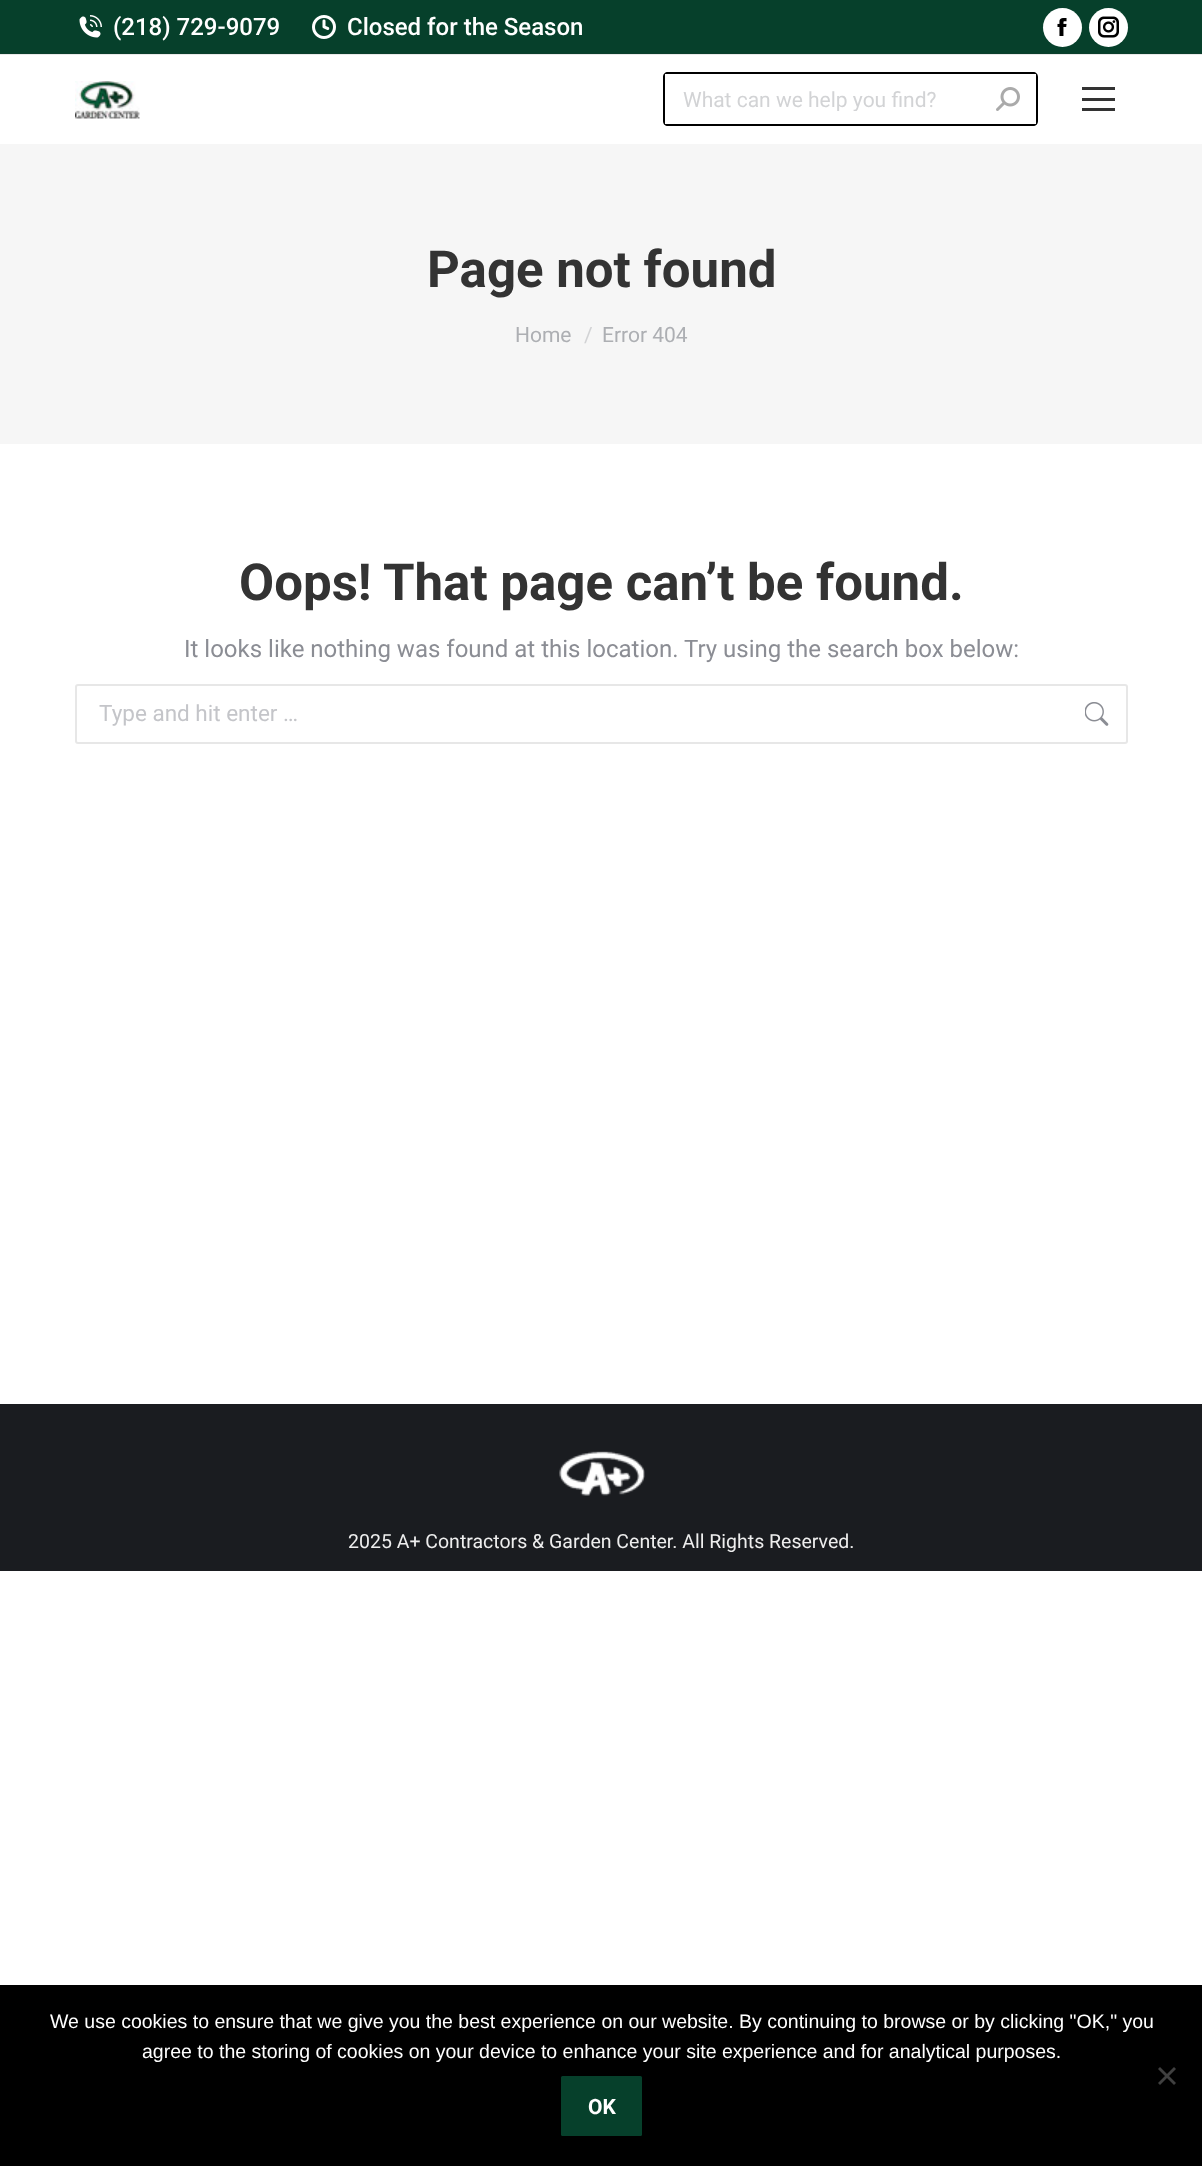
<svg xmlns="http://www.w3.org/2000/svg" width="1202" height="2166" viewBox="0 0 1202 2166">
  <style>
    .t1 { font: 500 24px Roboto; fill: #fff; }
    .t2 { font: 21px Roboto; fill: #d2d3d5; }
    .t3 { font: bold 51px Roboto; fill: #333; }
    .t4 { font: 21px Roboto; fill: #adafb3; }
    .t5 { font: 24px Roboto; fill: #8b8d94; }
    .t6 { font: 22.5px Roboto; fill: #c4c5c9; }
    .t7 { font: 19.5px Roboto; fill: #eee; }
    .t8 { font: 19.5px Liberation Sans; fill: #fff; }
    .t9 { font: bold 21px Roboto; fill: #fff; }
  </style>
  <defs>
    <clipPath id="clip1"><rect x="683" y="87" width="336" height="24"/></clipPath>
  </defs>
  <rect width="100%" height="100%" fill="#fff"/>
  <rect x="0" y="54" width="1202" height="1" fill="#e9e9e9"/>
  <rect x="0" y="0" width="1202" height="53" fill="#06402b"/>
  <rect x="0" y="53" width="1202" height="1" fill="#0b3f2c"/>
  <image x="79" y="15" width="23" height="23" href="images/1.png"/>
  <text x="113" y="35" class="t1">(218) 729-9079</text>
  <image x="312" y="15" width="24" height="24" href="images/2.png"/>
  <text x="347" y="35" class="t1">Closed for the Season</text>
  <circle cx="1062.5" cy="27.5" r="19.5" fill="#fff"/>
  <image x="1057" y="18" width="10" height="18" href="images/3.png"/>
  <circle cx="1108.5" cy="27.5" r="19.5" fill="#fff"/>
  <image x="1098" y="16" width="21" height="22" href="images/4.png"/>
  <image x="75" y="81" width="65" height="38" href="images/5.png"/>
  <path d="M668 72C665 72 663 74 663 77V121C663 124 665 126 668 126H1033C1036 126 1038 124 1038 121V77C1038 74 1036 72 1033 72ZM665 74V124H1036V74Z" fill="#000" fill-rule="evenodd"/>
  <g clip-path="url(#clip1)">
    <text x="683" y="107" class="t2">What can we help you find?</text>
  </g>
  <image x="996" y="87" width="24" height="24" href="images/6.png"/>
  <rect x="1082" y="87" width="33" height="3" fill="#333"/>
  <rect x="1082" y="98" width="33" height="3" fill="#333"/>
  <rect x="1082" y="108" width="33" height="3" fill="#333"/>
  <rect x="0" y="144" width="1202" height="300" fill="#f6f6f6"/>
  <text x="427" y="287" class="t3">Page not found</text>
  <text x="515" y="342" class="t4">Home</text>
  <text x="584" y="342" class="t2">/</text>
  <text x="602" y="342" class="t4">Error 404</text>
  <text x="239" y="600" class="t3">Oops! That page can’t be found.</text>
  <text x="184" y="657" class="t5">It looks like nothing was found at this location. Try using the search box below:</text>
  <rect x="76" y="685" width="1051" height="58" rx="2" fill="none" stroke="#e7e7e7" stroke-width="2"/>
  <text x="99" y="721" class="t6">Type and hit enter …</text>
  <image x="1085" y="702" width="24" height="24" href="images/7.png"/>
  <rect x="0" y="1404" width="1202" height="167" fill="#1a1c20"/>
  <image x="559" y="1451" width="86" height="45" href="images/8.png"/>
  <text x="348" y="1548" class="t7">2025 A+ Contractors &amp; Garden Center. All Rights Reserved.</text>
  <rect x="0" y="1985" width="1202" height="181" fill="#000"/>
  <text x="50" y="2028" class="t8">We use cookies to ensure that we give you the best experience on our website. By continuing to browse or by clicking "OK," you</text>
  <text x="142" y="2058" class="t8">agree to the storing of cookies on your device to enhance your site experience and for analytical purposes.</text>
  <path d="M1174 2067L1176 2069L1160 2085L1158 2083Z" fill="#404040"/>
  <path d="M1158 2069L1160 2067L1176 2083L1174 2085Z" fill="#404040"/>
  <rect x="561" y="2076" width="81" height="60" rx="1.5" fill="#06402b"/>
  <text x="588" y="2114" class="t9">OK</text>
</svg>
